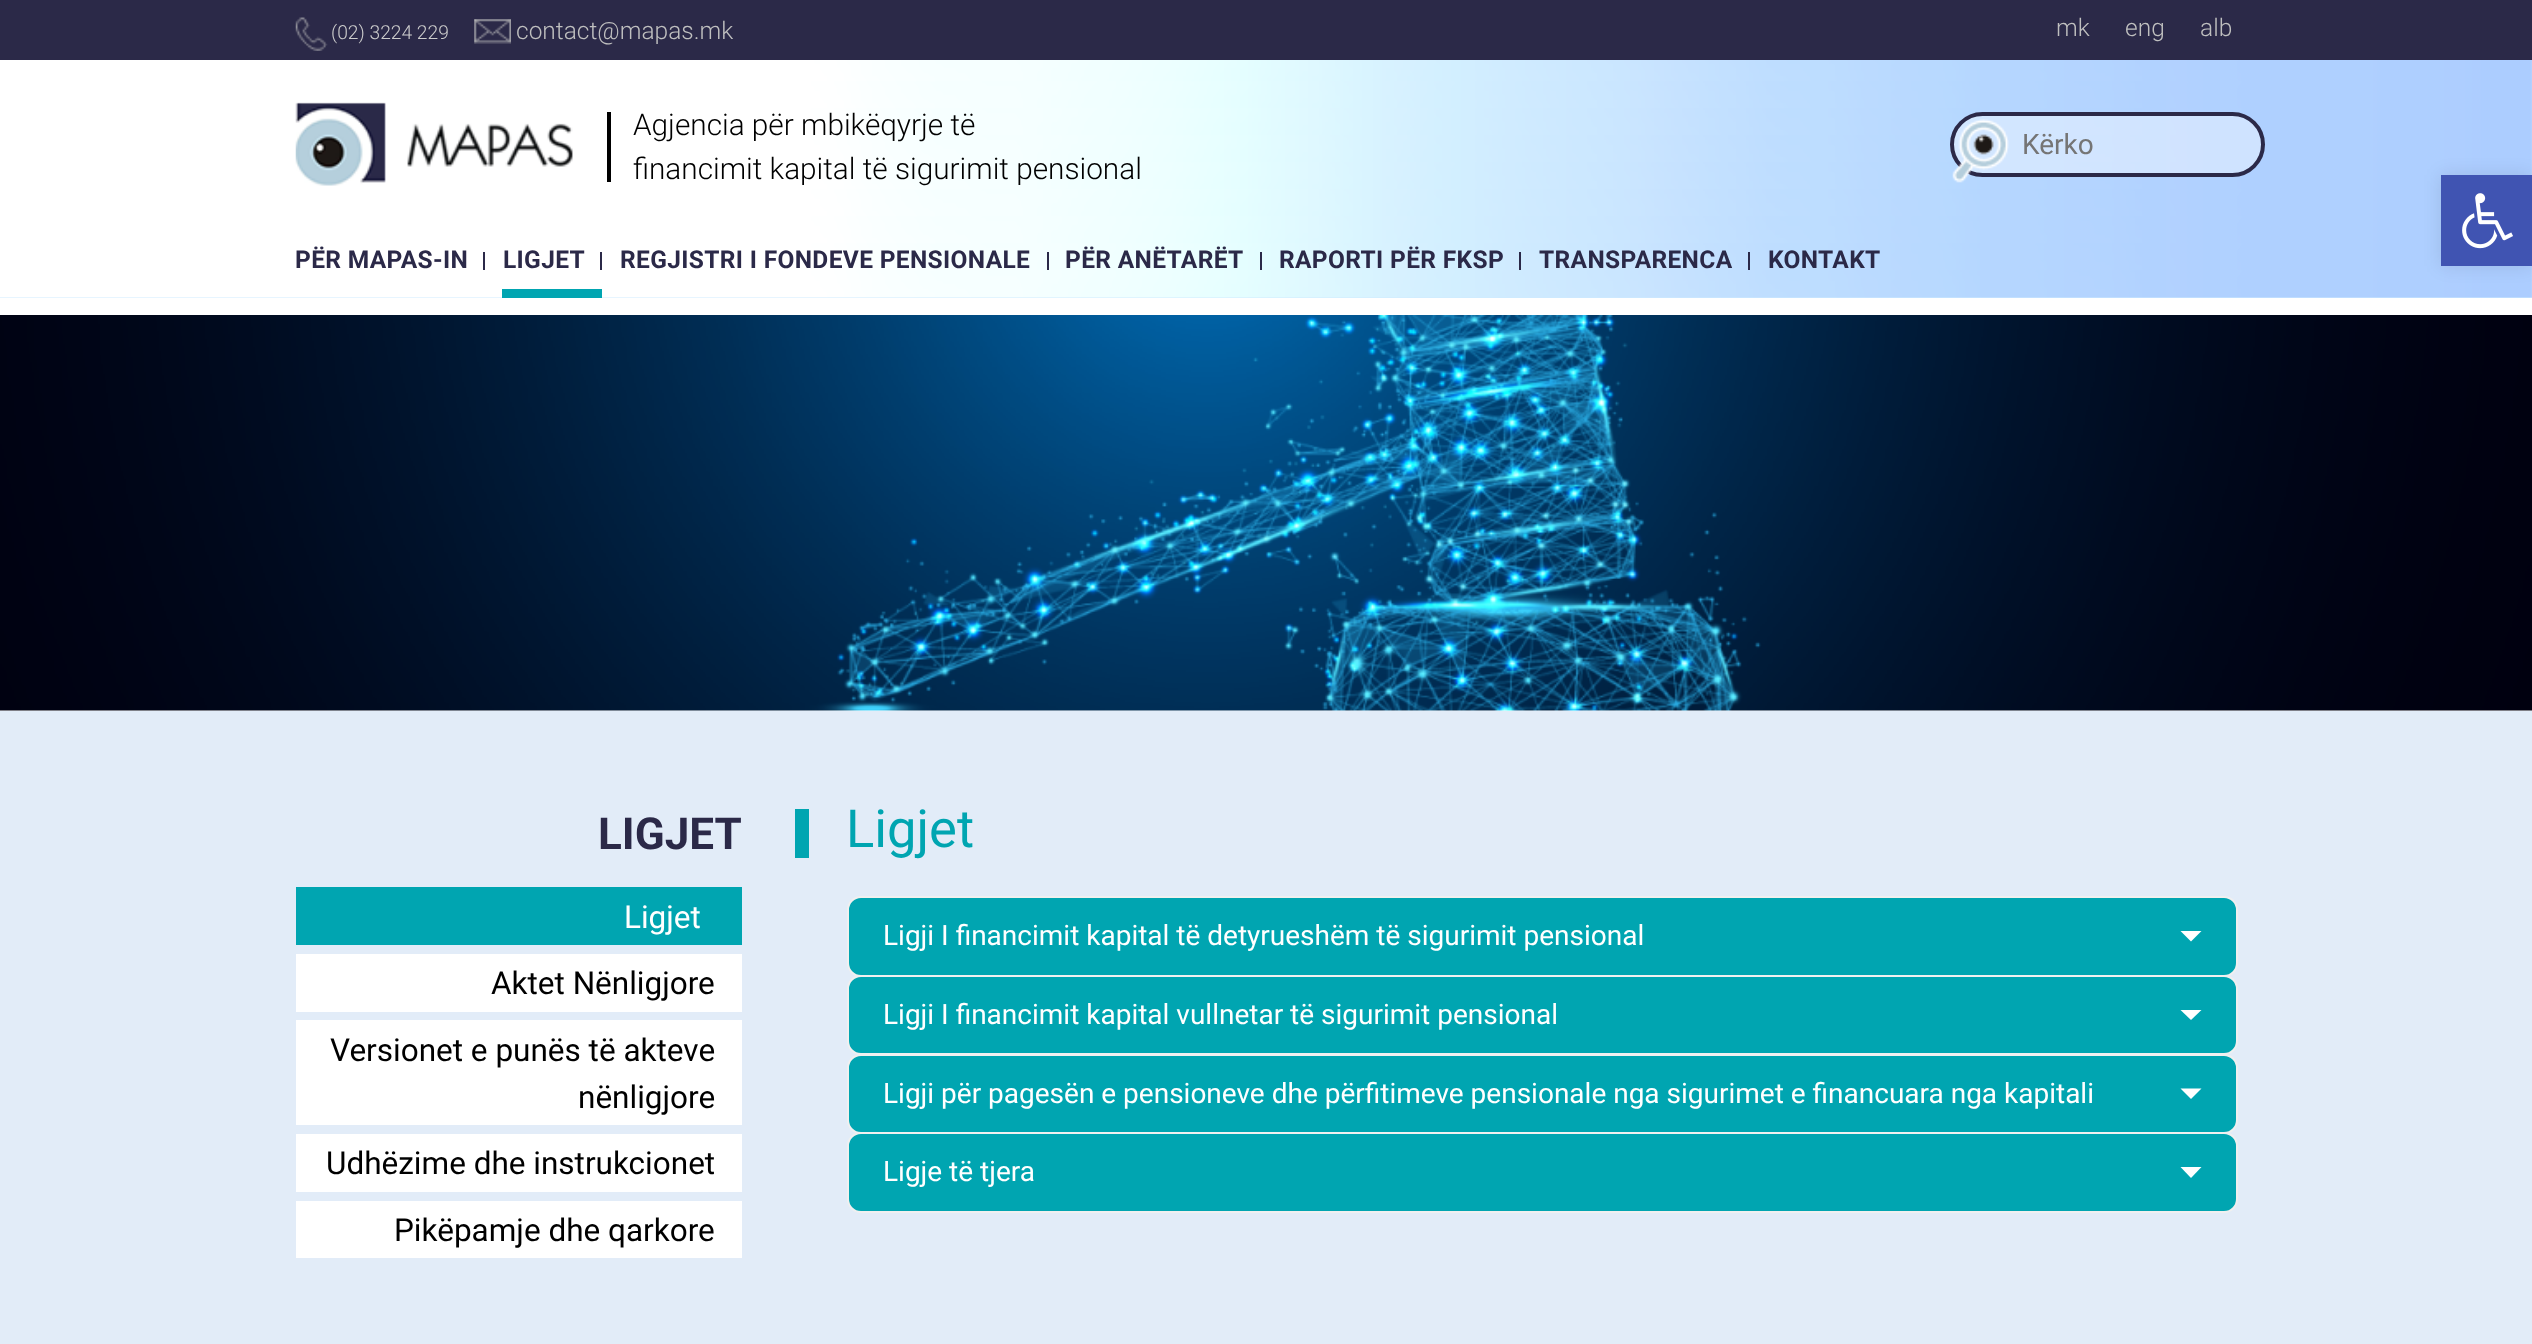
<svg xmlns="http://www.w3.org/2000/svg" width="2532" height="1344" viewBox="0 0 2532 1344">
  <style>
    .t1 { font: 300 19.25px Roboto; fill: #ccc; }
    .t2 { font: 300 24.5px Roboto; fill: #bfbfbf; }
    .t3 { font: 300 29.75px Roboto; fill: #000; }
    .t4 { font: 28px Roboto; fill: #757575; }
    .t5 { font: bold 24.5px Roboto; letter-spacing: 0.35px; fill: #2b2948; }
    .t6 { font: bold 44px Roboto; fill: #2b2948; }
    .t7 { font: 31.5px Roboto; fill: #fff; }
    .t8 { font: 31.5px Roboto; fill: #000; }
    .t9 { font: 52.5px Roboto; fill: #00a5b1; }
    .t10 { font: 28px Roboto; fill: #fff; }
  </style>
  <rect width="100%" height="100%" fill="#e2ecf8"/>
  <rect x="0" y="297" width="2532" height="1" fill="#cfebff"/>
  <image x="0" y="60" width="2532" height="238" href="images/1.png"/>
  <rect x="0" y="0" width="2532" height="60" fill="#2b2948"/>
  <image x="295" y="17" width="33" height="34" href="images/2.png"/>
  <text x="331" y="39" class="t1">(02) 3224 229</text>
  <image x="474" y="19" width="37" height="25" href="images/3.png"/>
  <text x="516" y="39" class="t2">contact@mapas.mk</text>
  <text x="2056" y="36" class="t2">mk</text>
  <text x="2125" y="36" class="t2">eng</text>
  <text x="2200" y="36" class="t2">alb</text>
  <image x="295" y="102" width="278" height="84" href="images/4.png"/>
  <rect x="607" y="112" width="4" height="70" fill="#000"/>
  <text x="633" y="135" class="t3">Agjencia për mbikëqyrje të</text>
  <text x="633" y="179" class="t3">financimit kapital të sigurimit pensional</text>
  <rect x="1952" y="114" width="311" height="61" rx="30.5" fill="#ffffff66" stroke="#2b2948" stroke-width="4"/>
  <image x="1952" y="119" width="57" height="64" href="images/5.png"/>
  <text x="2022" y="154" class="t4">Kërko</text>
  <text x="295" y="268" class="t5">PËR MAPAS-IN</text>
  <rect x="483" y="252" width="2" height="18" fill="#2b2948"/>
  <rect x="502" y="289" width="100" height="9" fill="#00a5b1"/>
  <text x="503" y="268" class="t5">LIGJET</text>
  <rect x="600" y="252" width="2" height="18" fill="#2b2948"/>
  <text x="620" y="268" class="t5">REGJISTRI I FONDEVE PENSIONALE</text>
  <rect x="1047" y="252" width="2" height="18" fill="#2b2948"/>
  <text x="1065" y="268" class="t5">PËR ANËTARËT</text>
  <rect x="1260" y="252" width="2" height="18" fill="#2b2948"/>
  <text x="1279" y="268" class="t5">RAPORTI PËR FKSP</text>
  <rect x="1519" y="252" width="2" height="18" fill="#2b2948"/>
  <text x="1539" y="268" class="t5">TRANSPARENCA</text>
  <rect x="1748" y="252" width="2" height="18" fill="#2b2948"/>
  <text x="1768" y="268" class="t5">KONTAKT</text>
  <rect x="2441" y="175" width="91" height="91" fill="#0000001a" filter="blur(9px)"/>
  <rect x="2441" y="175" width="91" height="91" fill="#4054b2"/>
  <image x="2462" y="193" width="51" height="56" href="images/6.png"/>
  <rect x="0" y="298" width="2532" height="413" fill="#fff"/>
  <image x="0" y="315" width="2532" height="396" href="images/7.png"/>
  <text x="598" y="849" class="t6">LIGJET</text>
  <rect x="296" y="887" width="446" height="58" fill="#00a5b1"/>
  <text x="624" y="928" class="t7">Ligjet</text>
  <rect x="296" y="954" width="446" height="58" fill="#fff"/>
  <text x="491" y="994" class="t8">Aktet Nënligjore</text>
  <rect x="296" y="1020" width="446" height="105" fill="#fff"/>
  <text x="330" y="1061" class="t8">Versionet e punës të akteve</text>
  <text x="578" y="1108" class="t8">nënligjore</text>
  <rect x="296" y="1134" width="446" height="58" fill="#fff"/>
  <text x="326" y="1174" class="t8">Udhëzime dhe instrukcionet</text>
  <rect x="296" y="1201" width="446" height="57" fill="#fff"/>
  <text x="394" y="1241" class="t8">Pikëpamje dhe qarkore</text>
  <rect x="795" y="809" width="14" height="49" fill="#00a5b1"/>
  <text x="846" y="847" class="t9">Ligjet</text>
  <rect x="848" y="897" width="1389" height="79" rx="13" fill="#00a5b1" stroke="#f0f0f0" stroke-width="2"/>
  <text x="883" y="945" class="t10">Ligji I financimit kapital të detyrueshëm të sigurimit pensional</text>
  <path d="M2180.5 931H2201.5L2191 941.5Z" fill="#fff"/>
  <rect x="848" y="976" width="1389" height="78" rx="13" fill="#00a5b1" stroke="#f0f0f0" stroke-width="2"/>
  <text x="883" y="1024" class="t10">Ligji I financimit kapital vullnetar të sigurimit pensional</text>
  <path d="M2180.5 1010H2201.5L2191 1020Z" fill="#fff"/>
  <rect x="848" y="1055" width="1389" height="78" rx="13" fill="#00a5b1" stroke="#f0f0f0" stroke-width="2"/>
  <text x="883" y="1103" class="t10">Ligji për pagesën e pensioneve dhe përfitimeve pensionale nga sigurimet e financuara nga kapitali</text>
  <path d="M2180.5 1088.5H2201.5L2191 1099Z" fill="#fff"/>
  <rect x="848" y="1133" width="1389" height="79" rx="13" fill="#00a5b1" stroke="#f0f0f0" stroke-width="2"/>
  <text x="883" y="1181" class="t10">Ligje të tjera</text>
  <path d="M2180.5 1167H2201.5L2191 1178Z" fill="#fff"/>
</svg>
